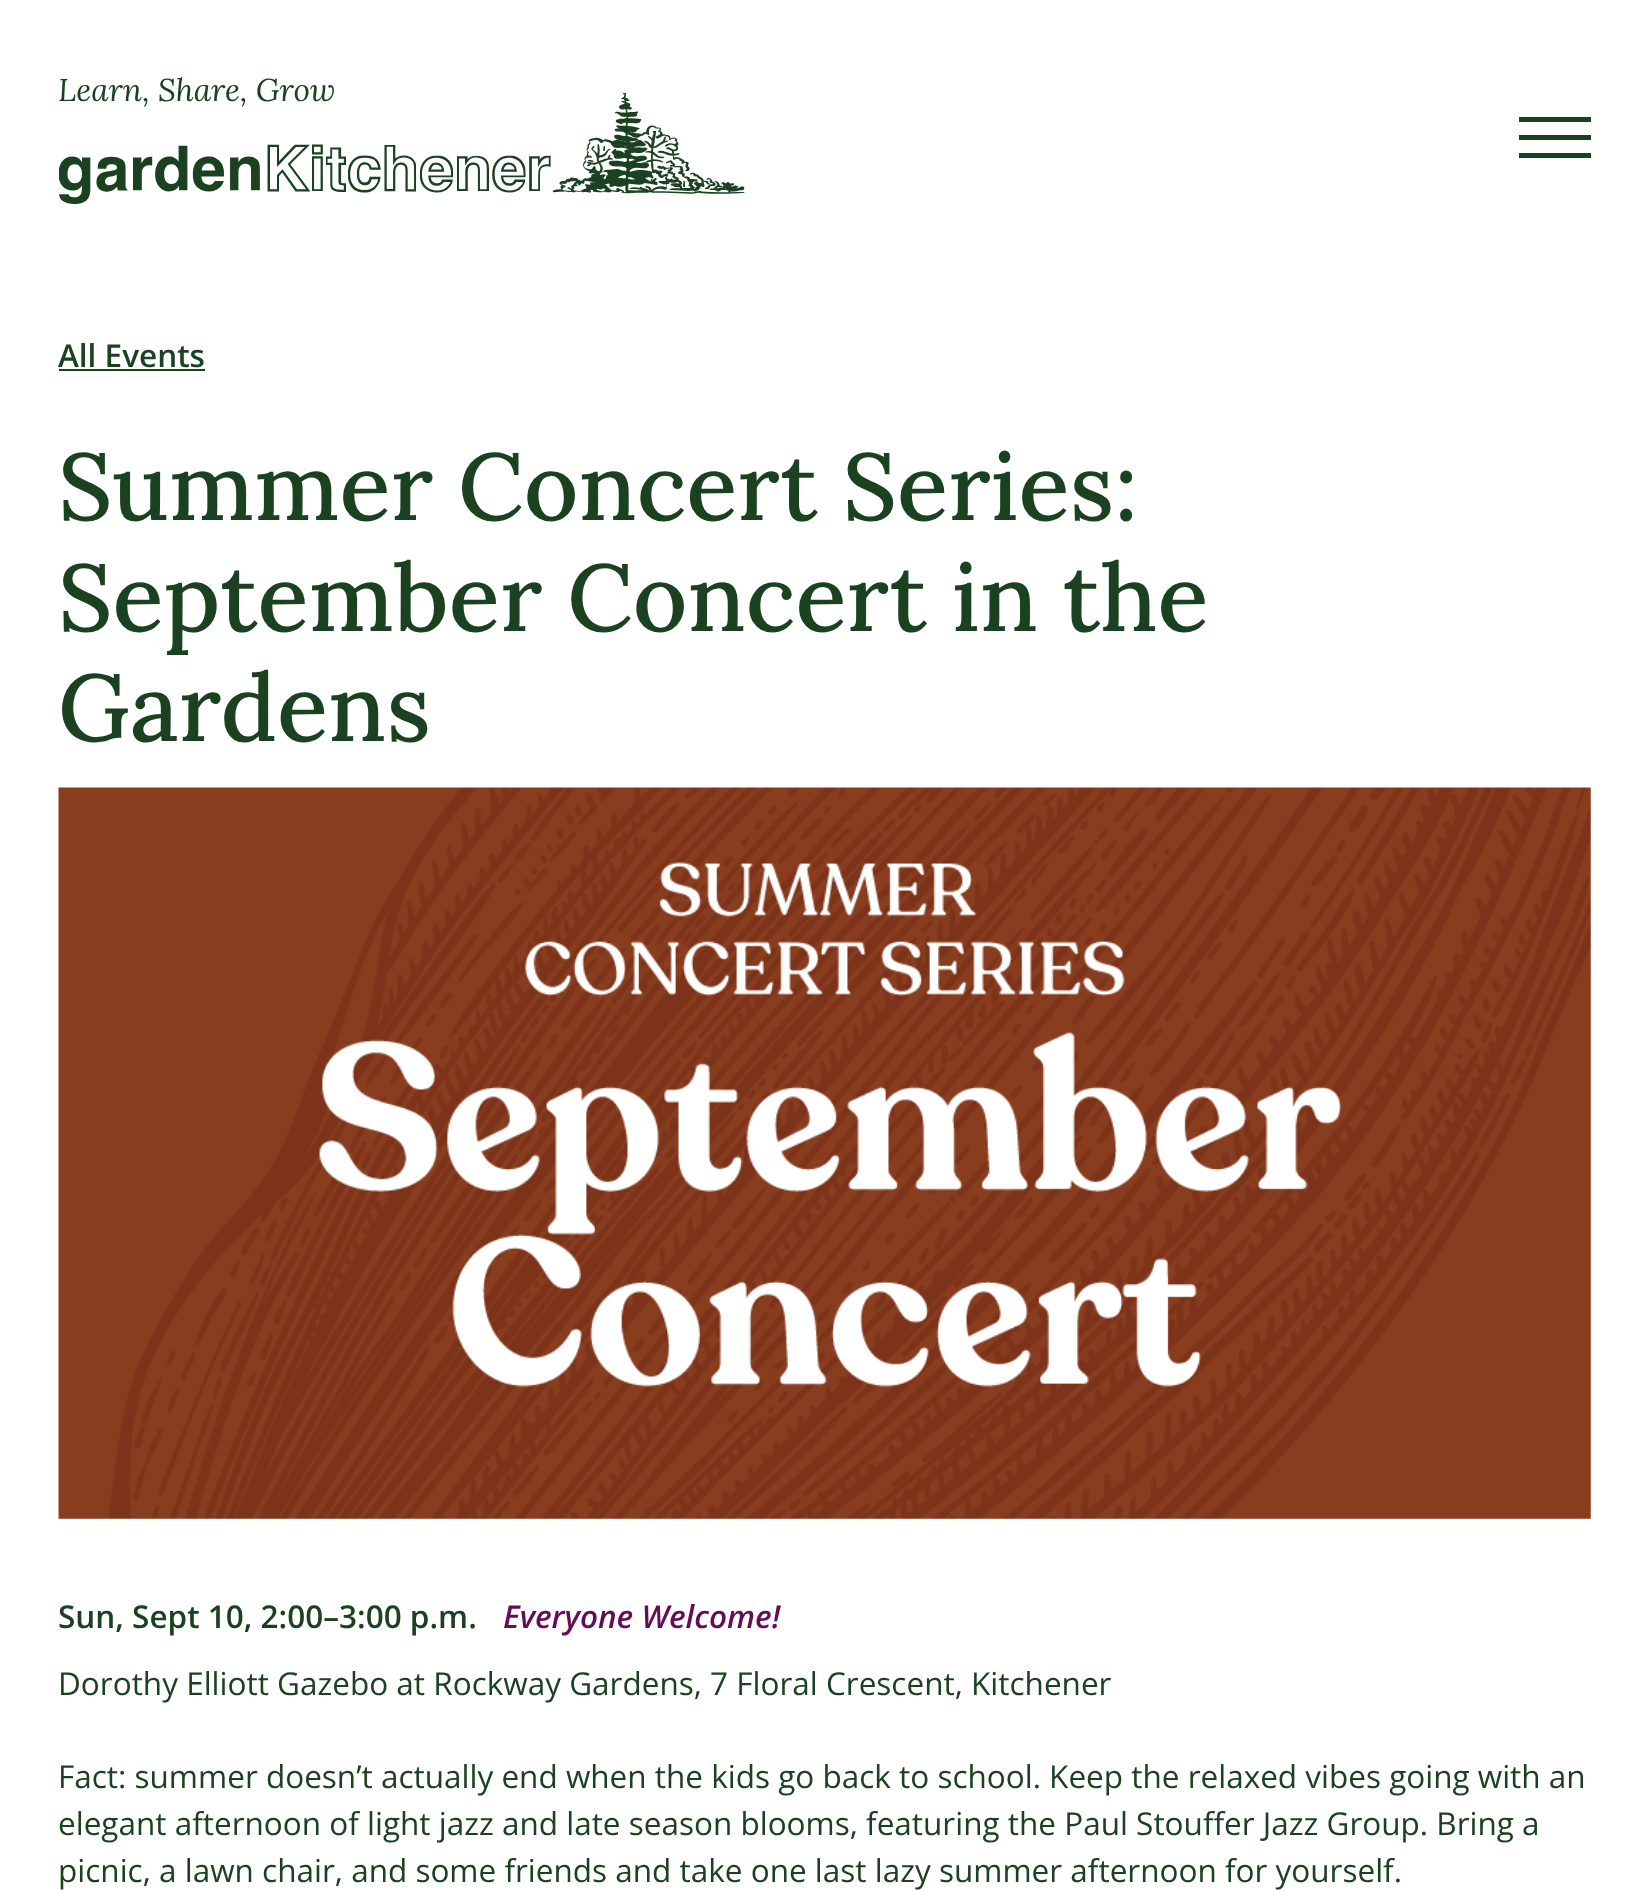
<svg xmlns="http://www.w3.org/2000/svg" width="1648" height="1890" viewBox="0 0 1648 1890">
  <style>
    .t1 { font: italic 31.5px Lora; fill: #1b4220; }
    .t2 { font: 600 31.5px Open Sans; fill: #1b4220; }
    .t3 { font: 500 94.5px Lora; fill: #1b4220; }
    .t4 { font: italic 600 31.5px Open Sans; fill: #650c52; }
    .t5 { font: 31.5px Open Sans; fill: #1b4220; }
  </style>
  <rect width="100%" height="100%" fill="#fff"/>
  <text x="58" y="101" class="t1">Learn, Share, Grow</text>
  <image x="59" y="92" width="686" height="112" href="images/1.png"/>
  <rect x="1519" y="117" width="72" height="5" fill="#1b4220"/>
  <rect x="1519" y="135" width="72" height="5" fill="#1b4220"/>
  <rect x="1519" y="153" width="72" height="5" fill="#1b4220"/>
  <text x="58" y="367" class="t2">All Events</text>
  <rect x="59" y="369" width="146" height="2" fill="#1b4220"/>
  <text x="58" y="520" class="t3">Summer Concert Series:</text>
  <text x="58" y="631" class="t3">September Concert in the</text>
  <text x="58" y="741" class="t3">Gardens</text>
  <image x="58" y="787" width="1533" height="732" href="images/2.png"/>
  <text x="58" y="1628" class="t2">Sun, Sept 10, 2:00–3:00 p.m.</text>
  <text x="503" y="1628" class="t4">Everyone Welcome!</text>
  <text x="58" y="1695" class="t5">Dorothy Elliott Gazebo at Rockway Gardens, 7 Floral Crescent, Kitchener</text>
  <text x="58" y="1788" class="t5">Fact: summer doesn’t actually end when the kids go back to school. Keep the relaxed vibes going with an</text>
  <text x="58" y="1835" class="t5">elegant afternoon of light jazz and late season blooms, featuring the Paul Stouffer Jazz Group. Bring a</text>
  <text x="58" y="1882" class="t5">picnic, a lawn chair, and some friends and take one last lazy summer afternoon for yourself.</text>
</svg>
